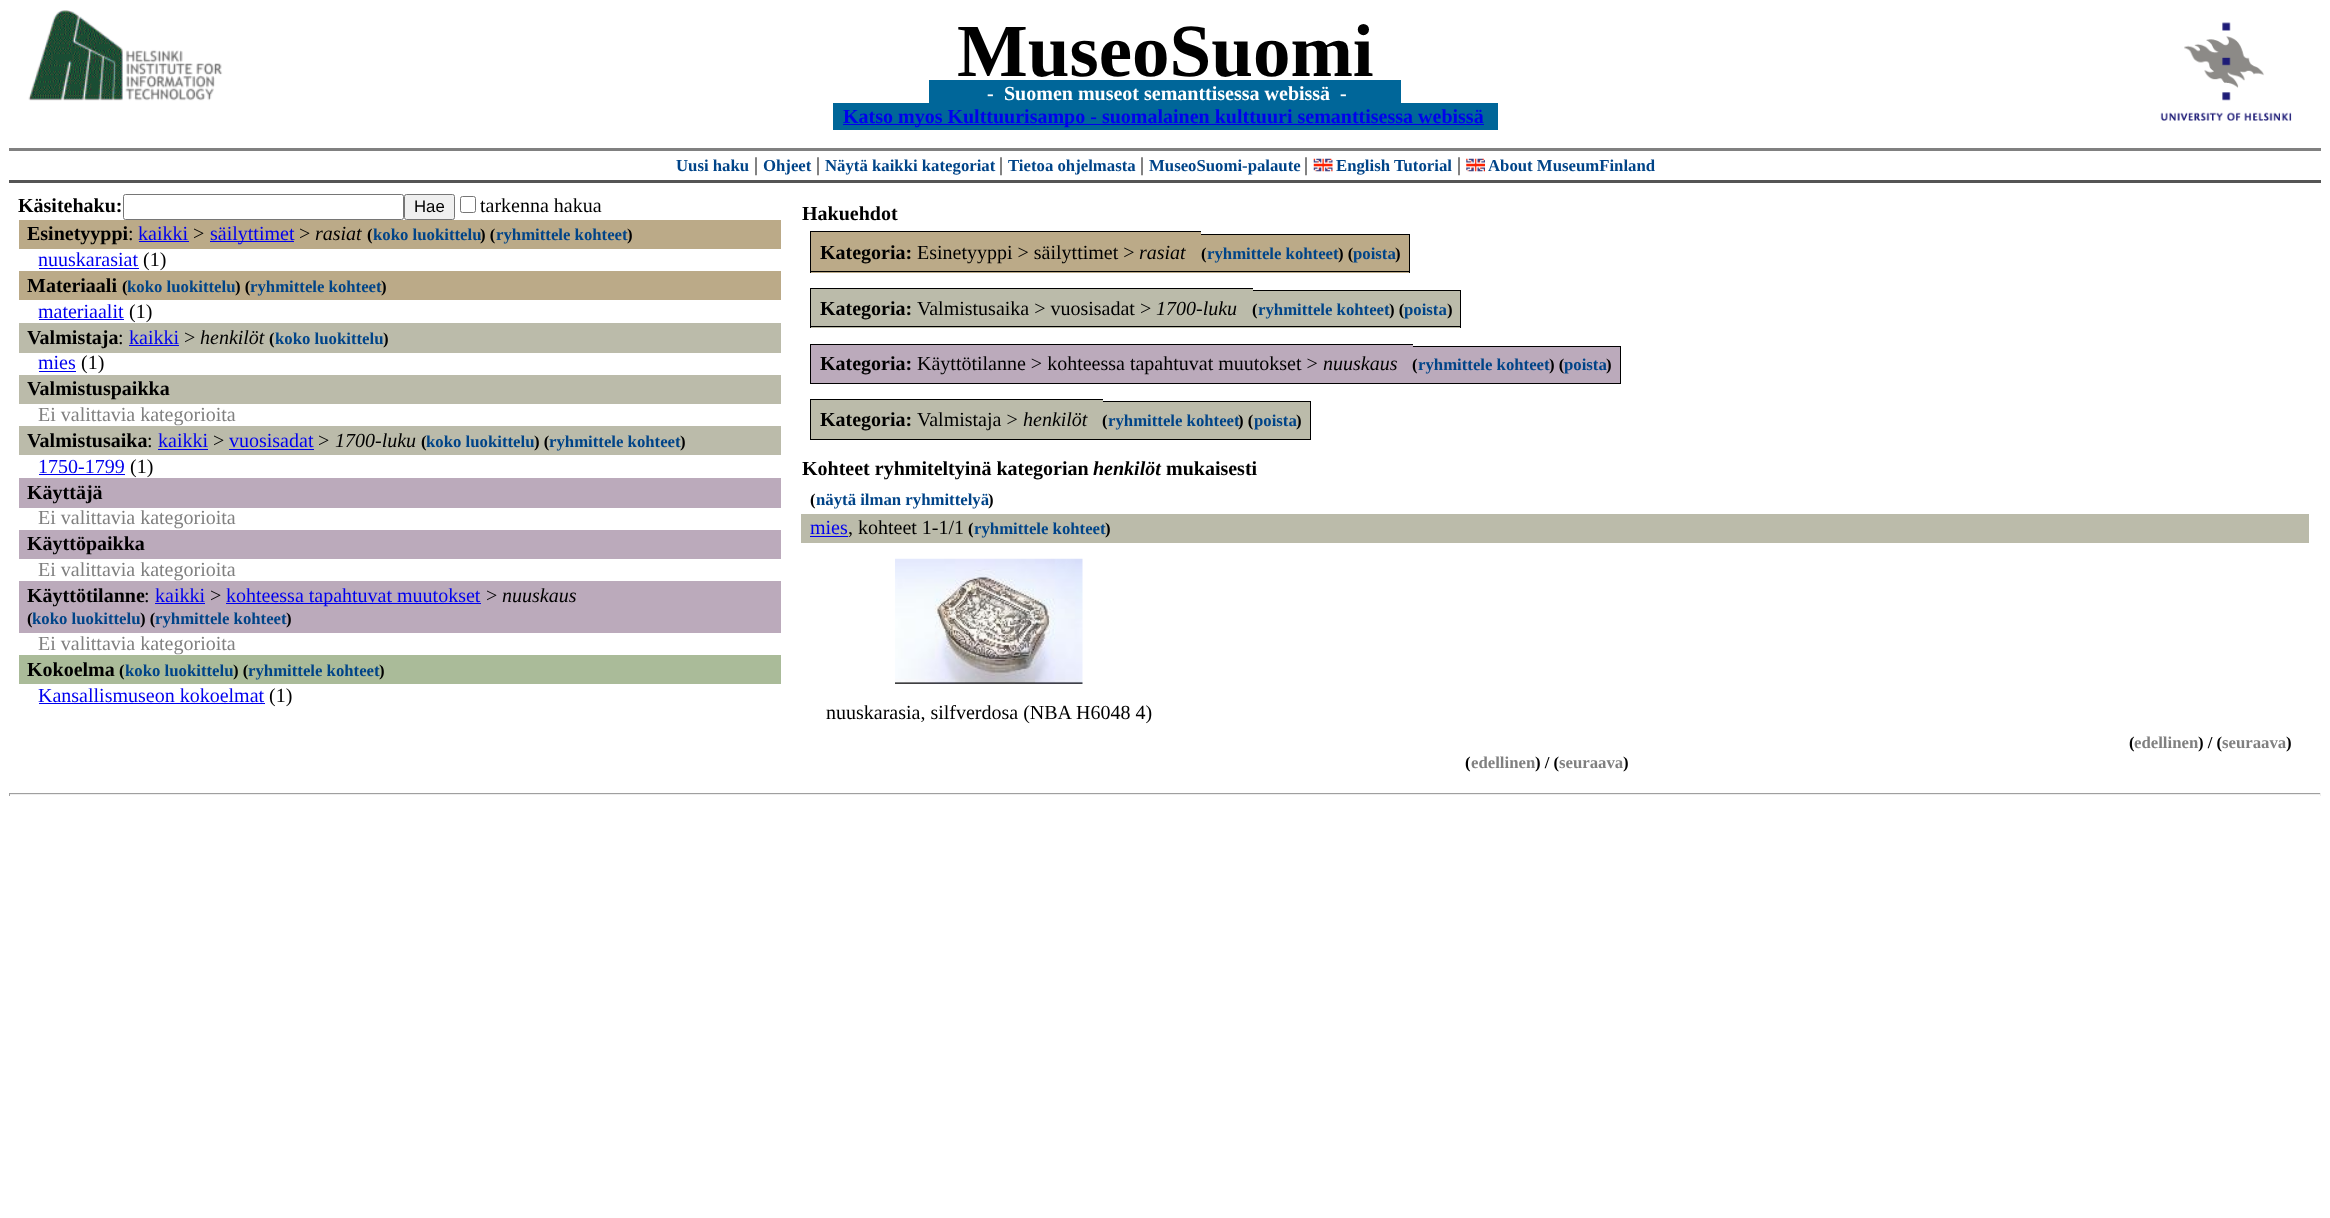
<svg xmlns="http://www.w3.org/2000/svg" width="2330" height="1218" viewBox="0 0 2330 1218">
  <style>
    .t1 { font: bold 75px Liberation Serif; fill: #000; }
    .t2 { font: bold 20px Liberation Serif; fill: #fff; }
    .t3 { font: bold 20px Liberation Serif; fill: #00e; }
    .t4 { font: bold 16.75px Liberation Serif; fill: #048; }
    .t5 { font: 20px Liberation Serif; fill: #000; }
    .t6 { font: bold 20px Liberation Serif; fill: #000; }
    .t7 { font: 16.75px Liberation Sans; fill: #000; }
    .t8 { font: 20px Liberation Serif; fill: #00e; }
    .t9 { font: italic 20px Liberation Serif; fill: #000; }
    .t10 { font: bold 16.75px Liberation Serif; fill: #000; }
    .t11 { font: 20px Liberation Serif; fill: #808080; }
    .t12 { font: italic bold 20px Liberation Serif; fill: #000; }
    .t13 { font: bold 16.75px Liberation Serif; fill: #808080; }
  </style>
  <rect width="100%" height="100%" fill="#fff"/>
  <image x="28" y="10" width="195" height="91" href="images/1.png"/>
  <text x="957" y="76" class="t1">MuseoSuomi</text>
  <image x="2160" y="22" width="132" height="99" href="images/2.png"/>
  <rect x="929" y="80" width="472" height="23" fill="#069"/>
  <text x="987" y="100" class="t2">-</text>
  <text x="1004" y="100" class="t2">Suomen museot semanttisessa webissä</text>
  <text x="1340" y="100" class="t2">-</text>
  <rect x="833" y="103" width="665" height="27" fill="#069"/>
  <rect x="843" y="124" width="641" height="1" fill="#00e"/>
  <text x="843" y="123" class="t3">Katso myos Kulttuurisampo - suomalainen kulttuuri semanttisessa webissä</text>
  <rect x="9" y="148" width="2312" height="3" fill="#808080"/>
  <rect x="9" y="180" width="2312" height="3" fill="#555"/>
  <text x="676" y="171" class="t4">Uusi haku</text>
  <text x="754" y="171" class="t5">|</text>
  <text x="763" y="171" class="t4">Ohjeet</text>
  <text x="816" y="171" class="t5">|</text>
  <text x="825" y="171" class="t4">Näytä kaikki kategoriat</text>
  <text x="999" y="171" class="t5">|</text>
  <text x="1008" y="171" class="t4">Tietoa ohjelmasta</text>
  <text x="1140" y="171" class="t5">|</text>
  <text x="1149" y="171" class="t4">MuseoSuomi-palaute</text>
  <text x="1304" y="171" class="t5">|</text>
  <image x="1313" y="158" width="20" height="14" href="images/3.png"/>
  <text x="1336" y="171" class="t4">English Tutorial</text>
  <text x="1457" y="171" class="t5">|</text>
  <image x="1466" y="158" width="19" height="14" href="images/4.png"/>
  <text x="1488" y="171" class="t4">About MuseumFinland</text>
  <text x="18" y="212" class="t6">Käsitehaku:</text>
  <rect x="123.5" y="194.5" width="280" height="25" rx="2" fill="none" stroke="#767676"/>
  <rect x="404.5" y="194.5" width="50" height="25" rx="2" fill="#efefef" stroke="#767676"/>
  <text x="414" y="212" class="t7">Hae</text>
  <rect x="460.5" y="196.5" width="15" height="16" rx="2" fill="none" stroke="#767676"/>
  <text x="480" y="212" class="t5">tarkenna hakua</text>
  <rect x="19" y="220" width="762" height="29" fill="#ba8"/>
  <text x="27" y="240" class="t6">Esinetyyppi</text>
  <text x="128" y="240" class="t5">:</text>
  <text x="138" y="240" class="t8">kaikki</text>
  <rect x="139" y="241" width="50" height="1" fill="#00e"/>
  <text x="193" y="240" class="t5">&gt;</text>
  <rect x="210" y="241" width="84" height="1" fill="#00e"/>
  <text x="210" y="240" class="t8">säilyttimet</text>
  <text x="299" y="240" class="t5">&gt;</text>
  <text x="315" y="240" class="t9">rasiat</text>
  <text x="367" y="240" class="t10">(</text>
  <text x="373" y="240" class="t4">koko luokittelu</text>
  <text x="480" y="240" class="t10">) (</text>
  <text x="496" y="240" class="t4">ryhmittele kohteet</text>
  <text x="627" y="240" class="t10">)</text>
  <text x="38" y="266" class="t8">nuuskarasiat</text>
  <rect x="39" y="268" width="100" height="1" fill="#00e"/>
  <text x="143" y="266" class="t5">(1)</text>
  <rect x="19" y="271" width="762" height="29" fill="#ba8"/>
  <text x="27" y="292" class="t6">Materiaali</text>
  <text x="122" y="292" class="t10">(</text>
  <text x="127" y="292" class="t4">koko luokittelu</text>
  <text x="235" y="292" class="t10">) (</text>
  <text x="250" y="292" class="t4">ryhmittele kohteet</text>
  <text x="381" y="292" class="t10">)</text>
  <text x="38" y="318" class="t8">materiaalit</text>
  <rect x="39" y="319" width="85" height="1" fill="#00e"/>
  <text x="129" y="318" class="t5">(1)</text>
  <rect x="19" y="323" width="762" height="30" fill="#bba"/>
  <text x="27" y="344" class="t6">Valmistaja</text>
  <text x="118" y="344" class="t5">:</text>
  <text x="129" y="344" class="t8">kaikki</text>
  <rect x="129" y="345" width="50" height="1" fill="#00e"/>
  <text x="184" y="344" class="t5">&gt;</text>
  <text x="200" y="344" class="t9">henkilöt</text>
  <text x="269" y="344" class="t10">(</text>
  <text x="275" y="344" class="t4">koko luokittelu</text>
  <text x="383" y="344" class="t10">)</text>
  <text x="38" y="369" class="t8">mies</text>
  <rect x="39" y="371" width="37" height="1" fill="#00e"/>
  <text x="81" y="369" class="t5">(1)</text>
  <rect x="19" y="375" width="762" height="29" fill="#bba"/>
  <text x="27" y="395" class="t6">Valmistuspaikka</text>
  <text x="38" y="421" class="t11">Ei valittavia kategorioita</text>
  <rect x="19" y="426" width="762" height="29" fill="#bba"/>
  <text x="27" y="447" class="t6">Valmistusaika</text>
  <text x="147" y="447" class="t5">:</text>
  <text x="158" y="447" class="t8">kaikki</text>
  <rect x="158" y="449" width="50" height="1" fill="#00e"/>
  <text x="213" y="447" class="t5">&gt;</text>
  <text x="229" y="447" class="t8">vuosisadat</text>
  <rect x="229" y="449" width="85" height="1" fill="#00e"/>
  <text x="318" y="447" class="t5">&gt;</text>
  <text x="335" y="447" class="t9">1700-luku</text>
  <text x="421" y="447" class="t10">(</text>
  <text x="426" y="447" class="t4">koko luokittelu</text>
  <text x="534" y="447" class="t10">) (</text>
  <text x="549" y="447" class="t4">ryhmittele kohteet</text>
  <text x="680" y="447" class="t10">)</text>
  <text x="38" y="473" class="t8">1750-1799</text>
  <rect x="39" y="474" width="86" height="1" fill="#00e"/>
  <text x="130" y="473" class="t5">(1)</text>
  <rect x="19" y="478" width="762" height="30" fill="#bab"/>
  <text x="27" y="499" class="t6">Käyttäjä</text>
  <text x="38" y="524" class="t11">Ei valittavia kategorioita</text>
  <rect x="19" y="530" width="762" height="29" fill="#bab"/>
  <text x="27" y="550" class="t6">Käyttöpaikka</text>
  <text x="38" y="576" class="t11">Ei valittavia kategorioita</text>
  <rect x="19" y="581" width="762" height="52" fill="#bab"/>
  <text x="27" y="602" class="t6">Käyttötilanne</text>
  <text x="144" y="602" class="t5">:</text>
  <text x="155" y="602" class="t8">kaikki</text>
  <rect x="155" y="603" width="50" height="1" fill="#00e"/>
  <text x="210" y="602" class="t5">&gt;</text>
  <rect x="226" y="603" width="255" height="1" fill="#00e"/>
  <text x="226" y="602" class="t8">kohteessa tapahtuvat muutokset</text>
  <text x="486" y="602" class="t5">&gt;</text>
  <text x="502" y="602" class="t9">nuuskaus</text>
  <text x="27" y="624" class="t10">(</text>
  <text x="32" y="624" class="t4">koko luokittelu</text>
  <text x="140" y="624" class="t10">) (</text>
  <text x="155" y="624" class="t4">ryhmittele kohteet</text>
  <text x="286" y="624" class="t10">)</text>
  <text x="38" y="650" class="t11">Ei valittavia kategorioita</text>
  <rect x="19" y="655" width="762" height="29" fill="#ab9"/>
  <text x="27" y="676" class="t6">Kokoelma</text>
  <text x="119" y="676" class="t10">(</text>
  <text x="125" y="676" class="t4">koko luokittelu</text>
  <text x="233" y="676" class="t10">) (</text>
  <text x="248" y="676" class="t4">ryhmittele kohteet</text>
  <text x="379" y="676" class="t10">)</text>
  <text x="38" y="702" class="t8">Kansallismuseon kokoelmat</text>
  <rect x="39" y="703" width="226" height="1" fill="#00e"/>
  <text x="269" y="702" class="t5">(1)</text>
  <text x="802" y="220" class="t6">Hakuehdot</text>
  <rect x="811" y="232" width="390" height="41" fill="#ba8"/>
  <text x="820" y="259" class="t6">Kategoria:</text>
  <rect x="810" y="231" width="391" height="1" fill="#000"/>
  <rect x="810" y="271" width="391" height="1" fill="#000"/>
  <rect x="810" y="231" width="1" height="42" fill="#000"/>
  <text x="917" y="259" class="t5">Esinetyyppi &gt; säilyttimet &gt;</text>
  <text x="1139" y="259" class="t9">rasiat</text>
  <rect x="1201" y="234" width="5" height="39" fill="#ba8"/>
  <rect x="1206" y="235" width="142" height="38" fill="#ba8"/>
  <text x="1201" y="259" class="t10">(</text>
  <rect x="1201" y="234" width="147" height="1" fill="#000"/>
  <rect x="1201" y="271" width="5" height="1" fill="#000"/>
  <rect x="1206" y="271" width="142" height="1" fill="#000"/>
  <text x="1207" y="259" class="t4">ryhmittele kohteet</text>
  <rect x="1348" y="234" width="5" height="39" fill="#ba8"/>
  <text x="1338" y="259" class="t10">) (</text>
  <rect x="1348" y="234" width="62" height="1" fill="#000"/>
  <rect x="1348" y="271" width="5" height="1" fill="#000"/>
  <rect x="1353" y="235" width="56" height="38" fill="#ba8"/>
  <rect x="1353" y="271" width="42" height="1" fill="#000"/>
  <text x="1353" y="259" class="t4">poista</text>
  <rect x="1409" y="234" width="1" height="39" fill="#000"/>
  <rect x="1395" y="271" width="15" height="1" fill="#000"/>
  <text x="1395" y="259" class="t10">)</text>
  <rect x="811" y="289" width="442" height="39" fill="#bba"/>
  <text x="820" y="315" class="t6">Kategoria:</text>
  <rect x="810" y="288" width="443" height="1" fill="#000"/>
  <rect x="810" y="326" width="443" height="1" fill="#000"/>
  <rect x="810" y="288" width="1" height="40" fill="#000"/>
  <text x="917" y="315" class="t5">Valmistusaika &gt; vuosisadat &gt;</text>
  <text x="1156" y="315" class="t9">1700-luku</text>
  <rect x="1253" y="290" width="5" height="38" fill="#bba"/>
  <text x="1252" y="315" class="t10">(</text>
  <rect x="1253" y="290" width="146" height="1" fill="#000"/>
  <rect x="1253" y="326" width="5" height="1" fill="#000"/>
  <rect x="1258" y="291" width="141" height="37" fill="#bba"/>
  <rect x="1258" y="326" width="141" height="1" fill="#000"/>
  <text x="1258" y="315" class="t4">ryhmittele kohteet</text>
  <rect x="1399" y="290" width="5" height="38" fill="#bba"/>
  <text x="1389" y="315" class="t10">) (</text>
  <rect x="1399" y="290" width="62" height="1" fill="#000"/>
  <rect x="1399" y="326" width="5" height="1" fill="#000"/>
  <rect x="1404" y="291" width="56" height="37" fill="#bba"/>
  <rect x="1404" y="326" width="42" height="1" fill="#000"/>
  <text x="1404" y="315" class="t4">poista</text>
  <rect x="1460" y="290" width="1" height="38" fill="#000"/>
  <rect x="1446" y="326" width="15" height="1" fill="#000"/>
  <text x="1447" y="315" class="t10">)</text>
  <rect x="811" y="345" width="602" height="38" fill="#bab"/>
  <text x="820" y="370" class="t6">Kategoria:</text>
  <rect x="810" y="344" width="603" height="1" fill="#000"/>
  <rect x="810" y="383" width="603" height="1" fill="#000"/>
  <rect x="810" y="344" width="1" height="40" fill="#000"/>
  <text x="917" y="370" class="t5">Käyttötilanne &gt; kohteessa tapahtuvat muutokset &gt;</text>
  <text x="1323" y="370" class="t9">nuuskaus</text>
  <rect x="1413" y="346" width="5" height="38" fill="#bab"/>
  <text x="1412" y="370" class="t10">(</text>
  <rect x="1413" y="346" width="146" height="1" fill="#000"/>
  <rect x="1413" y="383" width="146" height="1" fill="#000"/>
  <rect x="1418" y="347" width="141" height="36" fill="#bab"/>
  <text x="1418" y="370" class="t4">ryhmittele kohteet</text>
  <rect x="1559" y="346" width="5" height="38" fill="#bab"/>
  <text x="1549" y="370" class="t10">) (</text>
  <rect x="1559" y="346" width="62" height="1" fill="#000"/>
  <rect x="1559" y="383" width="47" height="1" fill="#000"/>
  <rect x="1564" y="347" width="56" height="36" fill="#bab"/>
  <text x="1564" y="370" class="t4">poista</text>
  <rect x="1620" y="346" width="1" height="38" fill="#000"/>
  <rect x="1606" y="383" width="15" height="1" fill="#000"/>
  <text x="1606" y="370" class="t10">)</text>
  <rect x="811" y="400" width="292" height="39" fill="#bba"/>
  <text x="820" y="426" class="t6">Kategoria:</text>
  <rect x="810" y="399" width="293" height="1" fill="#000"/>
  <rect x="810" y="439" width="293" height="1" fill="#000"/>
  <rect x="810" y="399" width="1" height="41" fill="#000"/>
  <text x="917" y="426" class="t5">Valmistaja &gt;</text>
  <text x="1023" y="426" class="t9">henkilöt</text>
  <rect x="1103" y="401" width="5" height="39" fill="#bba"/>
  <text x="1102" y="426" class="t10">(</text>
  <rect x="1103" y="401" width="146" height="1" fill="#000"/>
  <rect x="1103" y="439" width="146" height="1" fill="#000"/>
  <rect x="1108" y="402" width="141" height="37" fill="#bba"/>
  <text x="1108" y="426" class="t4">ryhmittele kohteet</text>
  <rect x="1249" y="401" width="5" height="39" fill="#bba"/>
  <text x="1238" y="426" class="t10">) (</text>
  <rect x="1249" y="401" width="62" height="1" fill="#000"/>
  <rect x="1249" y="439" width="47" height="1" fill="#000"/>
  <rect x="1254" y="402" width="56" height="37" fill="#bba"/>
  <text x="1254" y="426" class="t4">poista</text>
  <rect x="1310" y="401" width="1" height="39" fill="#000"/>
  <rect x="1296" y="439" width="15" height="1" fill="#000"/>
  <text x="1296" y="426" class="t10">)</text>
  <text x="802" y="475" class="t6">Kohteet ryhmiteltyinä kategorian</text>
  <text x="1093" y="475" class="t12">henkilöt</text>
  <text x="1166" y="475" class="t6">mukaisesti</text>
  <text x="810" y="505" class="t10">(</text>
  <text x="816" y="505" class="t4">näytä ilman ryhmittelyä</text>
  <text x="988" y="505" class="t10">)</text>
  <rect x="801" y="514" width="1508" height="29" fill="#bba"/>
  <text x="810" y="534" class="t8">mies</text>
  <rect x="810" y="536" width="38" height="1" fill="#00e"/>
  <text x="848" y="534" class="t5">, kohteet 1-1/1</text>
  <text x="968" y="534" class="t10">(</text>
  <text x="974" y="534" class="t4">ryhmittele kohteet</text>
  <text x="1105" y="534" class="t10">)</text>
  <image x="895" y="558" width="188" height="126" href="images/5.png"/>
  <text x="826" y="719" class="t5">nuuskarasia, silfverdosa (NBA H6048 4)</text>
  <text x="2129" y="748" class="t10">(</text>
  <text x="2134" y="748" class="t13">edellinen</text>
  <text x="2198" y="748" class="t10">) / (</text>
  <text x="2222" y="748" class="t13">seuraava</text>
  <text x="2286" y="748" class="t10">)</text>
  <text x="1465" y="768" class="t10">(</text>
  <text x="1471" y="768" class="t13">edellinen</text>
  <text x="1535" y="768" class="t10">) / (</text>
  <text x="1559" y="768" class="t13">seuraava</text>
  <text x="1623" y="768" class="t10">)</text>
  <rect x="9" y="793" width="2312" height="1" fill="#9f9f9f"/>
  <rect x="2320" y="793" width="1" height="3" fill="#eee"/>
  <rect x="9" y="794" width="2312" height="1" fill="#eee"/>
  <rect x="9" y="793" width="1" height="3" fill="#9f9f9f"/>
</svg>
